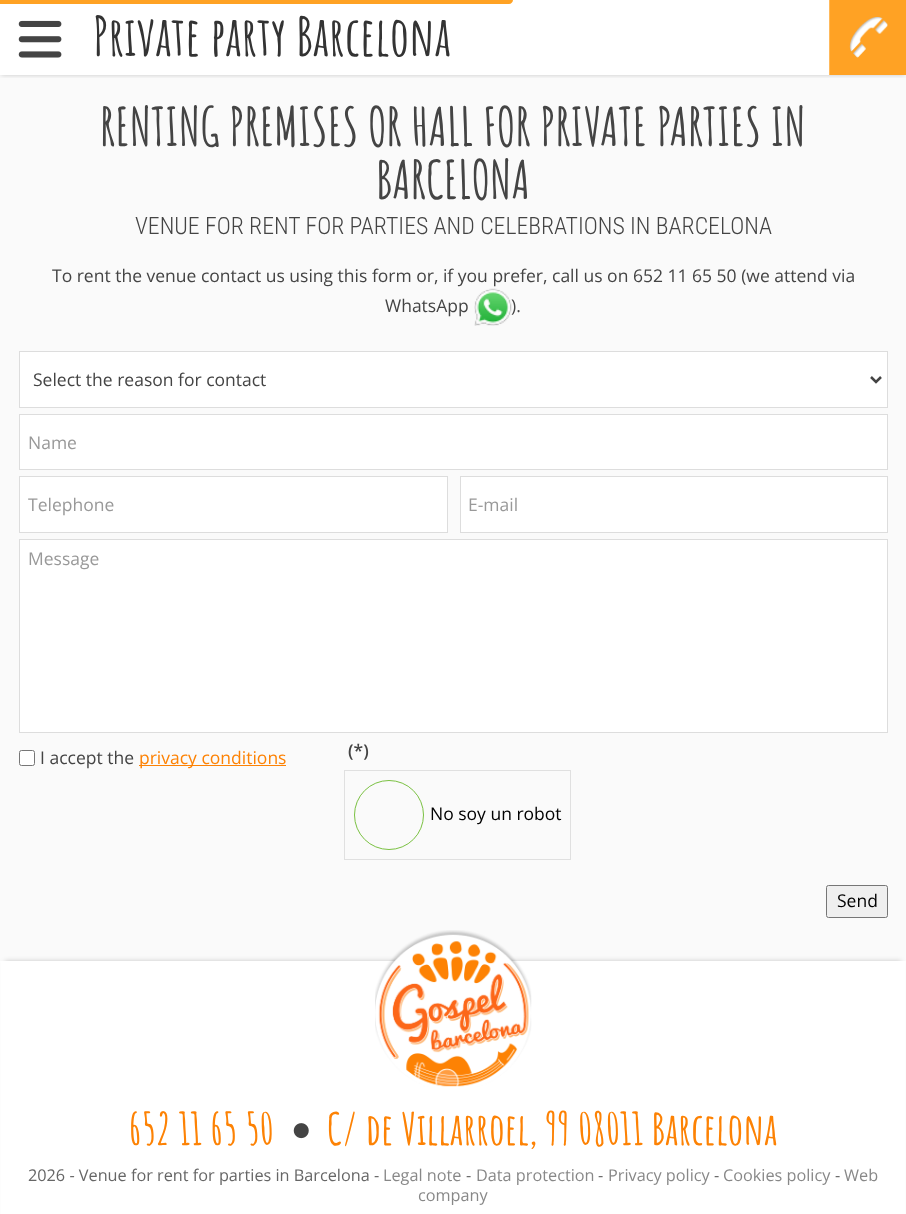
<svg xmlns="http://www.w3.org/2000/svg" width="906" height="1214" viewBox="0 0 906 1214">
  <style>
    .t1 { font: bold 53.75px Amatic SC; fill: #333; }
    .t2 { font: bold 52.5px Amatic SC; fill: #444; }
    .t3 { font: 300 23.75px Roboto Condensed; fill: #444; }
    .t4 { font: 17.5px Open Sans; fill: #444; }
    .t5 { font: 17.5px Open Sans; fill: #999; }
    .t6 { font: 17.5px Open Sans; fill: #fd8204; }
    .t7 { font: 600 17.5px Open Sans; fill: #444; }
    .t8 { font: 17.5px Open Sans; fill: #000; }
    .t9 { font: bold 43.75px Amatic SC; fill: #fd8204; }
    .t10 { font: 16.25px Open Sans; fill: #666; }
    .t11 { font: 16.25px Open Sans; fill: #888; }
  </style>
  <defs>
    <clipPath id="clip1"><rect x="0" y="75" width="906" height="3"/></clipPath>
  </defs>
  <rect width="100%" height="100%" fill="#fff"/>
  <rect x="0" y="75" width="906" height="886" fill="#fafafa"/>
  <g clip-path="url(#clip1)">
    <rect x="1" y="3" width="904" height="72" fill="#00000033" filter="blur(2.5px)"/>
  </g>
  <image x="18" y="20" width="44" height="38" href="images/1.png"/>
  <path d="M-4 0H513C513 2 511 4 509 4H0C-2 4-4 2-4 0Z" fill="#ffa224"/>
  <text x="93" y="56" class="t1">Private party Barcelona</text>
  <rect x="830" y="0" width="76" height="75" fill="#ffa224"/>
  <rect x="829" y="0" width="1" height="75" fill="#ffb95b"/>
  <image x="849" y="17" width="39" height="41" href="images/2.png"/>
  <text x="100" y="146" class="t2">RENTING PREMISES OR HALL FOR PRIVATE PARTIES IN</text>
  <text x="376" y="199" class="t2">BARCELONA</text>
  <text x="135" y="234" class="t3">VENUE FOR RENT FOR PARTIES AND CELEBRATIONS IN BARCELONA</text>
  <text x="52" y="282" class="t4">To rent the venue contact us using this form or, if you prefer, call us on 652 11 65 50 (we attend via</text>
  <text x="385" y="312" class="t4">WhatsApp</text>
  <image x="474" y="288" width="38" height="38" href="images/3.png"/>
  <text x="511" y="312" class="t4">).</text>
  <rect x="19.5" y="351.5" width="868" height="56" fill="#fff" stroke="#ddd"/>
  <path d="M871 377L876 382L881 377" fill="none" stroke="#444" stroke-width="2.5"/>
  <text x="33" y="386" class="t4">Select the reason for contact</text>
  <rect x="19.5" y="414.5" width="868" height="55" fill="#fff" stroke="#ddd"/>
  <text x="28" y="449" class="t5">Name</text>
  <rect x="19.5" y="476.5" width="428" height="56" fill="#fff" stroke="#ddd"/>
  <text x="28" y="511" class="t5">Telephone</text>
  <rect x="460.5" y="476.5" width="427" height="56" fill="#fff" stroke="#ddd"/>
  <text x="468" y="511" class="t5">E-mail</text>
  <rect x="19.5" y="539.5" width="868" height="193" fill="#fff" stroke="#ddd"/>
  <text x="28" y="565" class="t5">Message</text>
  <rect x="19.5" y="750.5" width="15" height="15" rx="2" fill="#fff" stroke="#767676"/>
  <text x="40" y="764" class="t4">I accept the</text>
  <rect x="139" y="765" width="147" height="1" fill="#fd8204"/>
  <text x="139" y="764" class="t6">privacy conditions</text>
  <text x="348" y="757" class="t7">(*)</text>
  <rect x="344.5" y="770.5" width="226" height="89" fill="none" stroke="#e0e0e0"/>
  <circle cx="389" cy="815" r="34.5" fill="none" stroke="#7ac142"/>
  <text x="430" y="820" class="t8">No soy un robot</text>
  <rect x="826.5" y="885.5" width="61" height="32" rx="2" fill="#efefef" stroke="#767676"/>
  <text x="837" y="907" class="t8">Send</text>
  <rect x="5" y="961" width="896" height="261" fill="#00000033" filter="blur(2.5px)"/>
  <rect x="1" y="961" width="904" height="253" fill="#fff"/>
  <image x="375" y="930" width="157" height="157" href="images/4.png"/>
  <text x="129" y="1145" class="t9">652 11 65 50</text>
  <image x="293" y="1123" width="16" height="16" href="images/5.png"/>
  <text x="327" y="1145" class="t9">C/ de Villarroel, 99 08011 Barcelona</text>
  <text x="28" y="1181" class="t10">2026 - Venue for rent for parties in Barcelona -</text>
  <text x="383" y="1181" class="t11">Legal note</text>
  <text x="466" y="1181" class="t10">-</text>
  <text x="476" y="1181" class="t11">Data protection</text>
  <text x="598" y="1181" class="t10">-</text>
  <text x="608" y="1181" class="t11">Privacy policy</text>
  <text x="714" y="1181" class="t10">-</text>
  <text x="723" y="1181" class="t11">Cookies policy</text>
  <text x="835" y="1181" class="t10">-</text>
  <text x="844" y="1181" class="t11">Web</text>
  <text x="418" y="1201" class="t11">company</text>
</svg>
